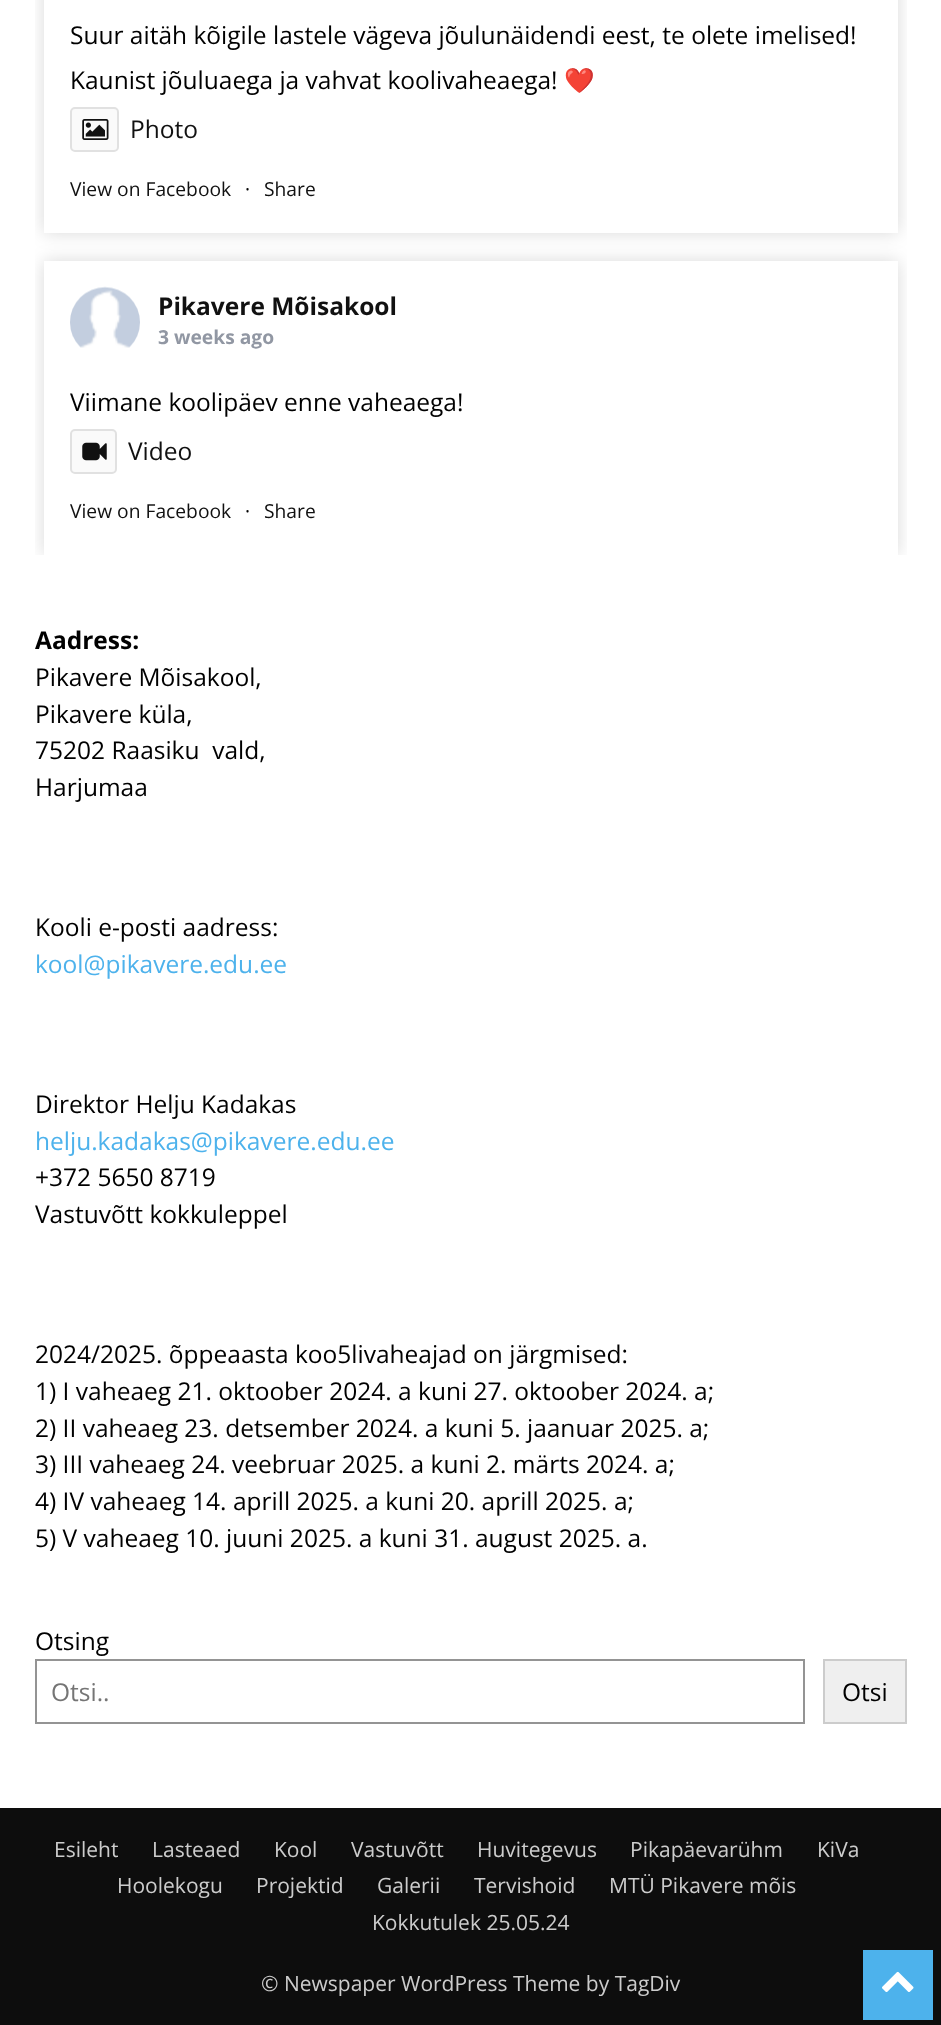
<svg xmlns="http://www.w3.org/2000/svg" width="941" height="2025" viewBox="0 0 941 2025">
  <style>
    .t1 { font: 24.5px Open Sans; fill: #000; }
    .t2 { font: 24.5px Noto Color Emoji; fill: #000; }
    .t3 { font: 24.5px Open Sans; fill: #111; }
    .t4 { font: 19.25px Open Sans; fill: #111; }
    .t5 { font: 19.25px Open Sans; fill: #000; }
    .t6 { font: bold 24.5px Open Sans; fill: #111; }
    .t7 { font: bold 19.25px Open Sans; fill: #9197a3; }
    .t8 { font: bold 24.5px Open Sans; fill: #000; }
    .t9 { font: 24.5px Open Sans; fill: #4db2ec; }
    .t10 { font: 24.5px Open Sans; fill: #757575; }
    .t11 { font: 21px Open Sans; fill: #ccc; }
  </style>
  <defs>
    <clipPath id="clip1"><rect x="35" y="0" width="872" height="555"/></clipPath>
    <clipPath id="clip2"><path d="M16 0H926V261H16ZM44-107H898V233H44Z" clip-rule="evenodd"/></clipPath>
    <clipPath id="clip3"><path d="M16 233H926V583H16ZM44 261H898V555H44Z" clip-rule="evenodd"/></clipPath>
  </defs>
  <rect width="100%" height="100%" fill="#fff"/>
  <g clip-path="url(#clip1)">
    <g clip-path="url(#clip2)">
      <rect x="44" y="-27" width="854" height="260" fill="#00000026" filter="blur(9px)"/>
    </g>
  </g>
  <text x="70" y="44" class="t1">Suur aitäh kõigile lastele vägeva jõulunäidendi eest, te olete imelised!</text>
  <text x="70" y="89" class="t1">Kaunist jõuluaega ja vahvat koolivaheaega!</text>
  <text x="564" y="89" class="t2">❤️</text>
  <rect x="71" y="108" width="47" height="43" rx="4" fill="#fafafa" stroke="#e1e1e1" stroke-width="2"/>
  <image x="82" y="119" width="27" height="21" href="images/1.png"/>
  <text x="130" y="138" class="t3">Photo</text>
  <text x="70" y="196" class="t4">View on Facebook</text>
  <text x="245" y="196" class="t5">·</text>
  <text x="264" y="196" class="t4">Share</text>
  <g clip-path="url(#clip1)">
    <g clip-path="url(#clip3)">
      <rect x="44" y="261" width="854" height="294" fill="#00000026" filter="blur(9px)"/>
    </g>
  </g>
  <image x="70" y="286" width="70" height="62" href="images/2.png"/>
  <text x="158" y="315" class="t6">Pikavere Mõisakool</text>
  <text x="158" y="344" class="t7">3 weeks ago</text>
  <text x="70" y="411" class="t1">Viimane koolipäev enne vaheaega!</text>
  <rect x="71" y="430" width="45" height="43" rx="4" fill="#fafafa" stroke="#e1e1e1" stroke-width="2"/>
  <image x="82" y="442" width="25" height="19" href="images/3.png"/>
  <text x="128" y="460" class="t3">Video</text>
  <text x="70" y="518" class="t4">View on Facebook</text>
  <text x="245" y="518" class="t5">·</text>
  <text x="264" y="518" class="t4">Share</text>
  <text x="35" y="649" class="t8">Aadress:</text>
  <text x="35" y="686" class="t1">Pikavere Mõisakool,</text>
  <text x="35" y="723" class="t1">Pikavere küla,</text>
  <text x="35" y="759" class="t1" xml:space="preserve">75202 Raasiku  vald,</text>
  <text x="35" y="796" class="t1">Harjumaa</text>
  <text x="35" y="936" class="t1">Kooli e-posti aadress:</text>
  <text x="35" y="973" class="t9">kool@pikavere.edu.ee</text>
  <text x="35" y="1113" class="t1">Direktor Helju Kadakas</text>
  <text x="35" y="1150" class="t9">helju.kadakas@pikavere.edu.ee</text>
  <text x="35" y="1186" class="t1">+372 5650 8719</text>
  <text x="35" y="1223" class="t1">Vastuvõtt kokkuleppel</text>
  <text x="35" y="1363" class="t1">2024/2025. õppeaasta koo5livaheajad on järgmised:</text>
  <text x="35" y="1400" class="t1">1) I vaheaeg 21. oktoober 2024. a kuni 27. oktoober 2024. a;</text>
  <text x="35" y="1437" class="t1">2) II vaheaeg 23. detsember 2024. a kuni 5. jaanuar 2025. a;</text>
  <text x="35" y="1473" class="t1">3) III vaheaeg 24. veebruar 2025. a kuni 2. märts 2024. a;</text>
  <text x="35" y="1510" class="t1">4) IV vaheaeg 14. aprill 2025. a kuni 20. aprill 2025. a;</text>
  <text x="35" y="1547" class="t1">5) V vaheaeg 10. juuni 2025. a kuni 31. august 2025. a.</text>
  <text x="35" y="1650" class="t1">Otsing</text>
  <rect x="36" y="1660" width="768" height="63" fill="none" stroke="#949494" stroke-width="2"/>
  <text x="51" y="1701" class="t10">Otsi..</text>
  <rect x="824" y="1660" width="82" height="63" fill="#efefef" stroke="#ccc" stroke-width="2"/>
  <text x="842" y="1701" class="t1">Otsi</text>
  <rect x="0" y="1808" width="941" height="217" fill="#0d0d0d"/>
  <text x="54" y="1857" class="t11">Esileht</text>
  <text x="152" y="1857" class="t11">Lasteaed</text>
  <text x="274" y="1857" class="t11">Kool</text>
  <text x="351" y="1857" class="t11">Vastuvõtt</text>
  <text x="477" y="1857" class="t11">Huvitegevus</text>
  <text x="630" y="1857" class="t11">Pikapäevarühm</text>
  <text x="817" y="1857" class="t11">KiVa</text>
  <text x="117" y="1893" class="t11">Hoolekogu</text>
  <text x="256" y="1893" class="t11">Projektid</text>
  <text x="377" y="1893" class="t11">Galerii</text>
  <text x="474" y="1893" class="t11">Tervishoid</text>
  <text x="609" y="1893" class="t11">MTÜ Pikavere mõis</text>
  <text x="372" y="1930" class="t11">Kokkutulek 25.05.24</text>
  <text x="261" y="1991" class="t11">© Newspaper WordPress Theme by TagDiv</text>
  <rect x="863" y="1950" width="70" height="70" fill="#4db2ec"/>
  <image x="882" y="1971" width="32" height="21" href="images/4.png"/>
</svg>
